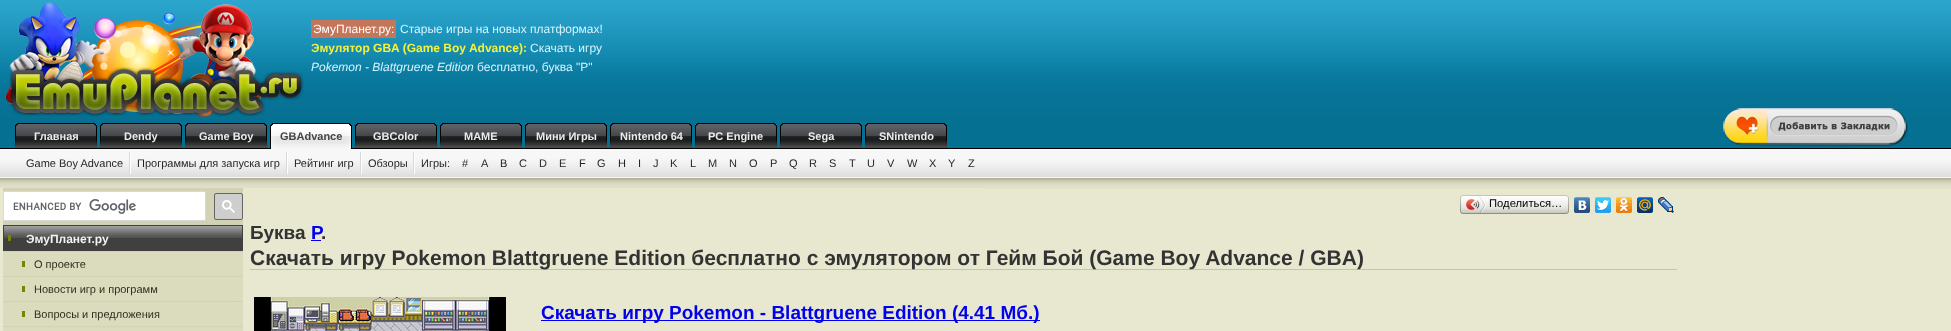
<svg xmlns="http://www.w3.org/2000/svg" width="1951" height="331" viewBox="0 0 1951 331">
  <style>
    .t1 { font: 12px Liberation Sans; fill: #fff; }
    .t2 { font: 12px Liberation Sans; fill: #d4f5ff; }
    .t3 { font: bold 12px Liberation Sans; fill: #f4f23c; }
    .t4 { font: italic 12px Liberation Sans; fill: #d4f5ff; }
    .t5 { font: bold 11px Liberation Sans; fill: #ebebeb; }
    .t6 { font: bold 11px Liberation Sans; fill: #444; }
    .t7 { font: 11px Liberation Sans; fill: #1f2123; }
    .t8 { font: bold 12px Liberation Sans; fill: #f3f3f3; }
    .t9 { font: 11px Liberation Sans; fill: #2f2f20; }
    .t10 { font: 11.25px Liberation Sans; fill: #000; }
    .t11 { font: bold 19px Liberation Sans; fill: #333; }
    .t12 { font: bold 19px Liberation Sans; fill: #00e; }
    .t13 { font: bold 21px Liberation Sans; fill: #333; }
  </style>
  <rect width="100%" height="100%" fill="#fff"/>
  <image x="0" y="0" width="1951" height="178" href="images/1.png"/>
  <image x="5" y="2" width="299" height="115" href="images/2.png"/>
  <rect x="311" y="20" width="85" height="18" fill="#c37659"/>
  <text x="313" y="33" class="t1">ЭмуПланет.ру:</text>
  <text x="400" y="33" class="t2">Старые игры на новых платформах!</text>
  <text x="311" y="52" class="t3">Эмулятор GBA (Game Boy Advance):</text>
  <text x="530" y="52" class="t2">Скачать игру</text>
  <text x="311" y="71" class="t4">Pokemon - Blattgruene Edition</text>
  <text x="477" y="71" class="t2">бесплатно, буква "P"</text>
  <image x="15" y="123" width="82" height="25" href="images/3.png"/>
  <text x="34" y="140" class="t5">Главная</text>
  <image x="100" y="123" width="82" height="25" href="images/3.png"/>
  <text x="124" y="140" class="t5">Dendy</text>
  <image x="185" y="123" width="82" height="25" href="images/3.png"/>
  <text x="199" y="140" class="t5">Game Boy</text>
  <image x="270" y="123" width="82" height="26" href="images/4.png"/>
  <text x="280" y="140" class="t6">GBAdvance</text>
  <image x="355" y="123" width="82" height="25" href="images/3.png"/>
  <text x="373" y="140" class="t5">GBColor</text>
  <image x="440" y="123" width="82" height="25" href="images/3.png"/>
  <text x="464" y="140" class="t5">MAME</text>
  <image x="525" y="123" width="82" height="25" href="images/3.png"/>
  <text x="536" y="140" class="t5">Мини Игры</text>
  <image x="610" y="123" width="82" height="25" href="images/3.png"/>
  <text x="620" y="140" class="t5">Nintendo 64</text>
  <image x="695" y="123" width="82" height="25" href="images/3.png"/>
  <text x="708" y="140" class="t5">PC Engine</text>
  <image x="780" y="123" width="82" height="25" href="images/3.png"/>
  <text x="808" y="140" class="t5">Sega</text>
  <image x="865" y="123" width="82" height="25" href="images/3.png"/>
  <text x="879" y="140" class="t5">SNintendo</text>
  <image x="1723" y="108" width="185" height="39" href="images/5.png"/>
  <image x="129" y="152" width="2" height="22" href="images/6.png"/>
  <text x="26" y="167" class="t7">Game Boy Advance</text>
  <image x="286" y="152" width="2" height="22" href="images/6.png"/>
  <text x="137" y="167" class="t7">Программы для запуска игр</text>
  <image x="360" y="152" width="2" height="22" href="images/6.png"/>
  <text x="294" y="167" class="t7">Рейтинг игр</text>
  <image x="413" y="152" width="2" height="22" href="images/6.png"/>
  <text x="368" y="167" class="t7">Обзоры</text>
  <text x="421" y="167" class="t7">Игры:</text>
  <text x="462" y="167" class="t7">#</text>
  <text x="481" y="167" class="t7">A</text>
  <text x="500" y="167" class="t7">B</text>
  <text x="519" y="167" class="t7">C</text>
  <text x="539" y="167" class="t7">D</text>
  <text x="559" y="167" class="t7">E</text>
  <text x="579" y="167" class="t7">F</text>
  <text x="597" y="167" class="t7">G</text>
  <text x="618" y="167" class="t7">H</text>
  <text x="638" y="167" class="t7">I</text>
  <text x="653" y="167" class="t7">J</text>
  <text x="670" y="167" class="t7">K</text>
  <text x="690" y="167" class="t7">L</text>
  <text x="708" y="167" class="t7">M</text>
  <text x="729" y="167" class="t7">N</text>
  <text x="749" y="167" class="t7">O</text>
  <text x="770" y="167" class="t7">P</text>
  <text x="789" y="167" class="t7">Q</text>
  <text x="809" y="167" class="t7">R</text>
  <text x="829" y="167" class="t7">S</text>
  <text x="849" y="167" class="t7">T</text>
  <text x="867" y="167" class="t7">U</text>
  <text x="887" y="167" class="t7">V</text>
  <text x="907" y="167" class="t7">W</text>
  <text x="929" y="167" class="t7">X</text>
  <text x="948" y="167" class="t7">Y</text>
  <text x="968" y="167" class="t7">Z</text>
  <rect x="984" y="189" width="967" height="142" fill="#e8e8d0"/>
  <image x="0" y="178" width="1951" height="11" href="images/7.png"/>
  <image x="0" y="188" width="984" height="143" href="images/8.png"/>
  <rect x="3.5" y="191.5" width="202" height="29" fill="#fff" stroke="#d9d9d9"/>
  <image x="13" y="199" width="123" height="15" href="images/9.png"/>
  <rect x="214.5" y="193.5" width="28" height="26" rx="1.5" fill="#cecece" stroke="#666"/>
  <image x="222" y="200" width="13" height="13" href="images/10.png"/>
  <image x="4" y="225" width="238" height="26" href="images/11.png"/>
  <rect x="242" y="225" width="1" height="26" fill="#404040"/>
  <rect x="3" y="225" width="1" height="26" fill="#404040"/>
  <text x="26" y="243" class="t8">ЭмуПланет.ру</text>
  <rect x="8" y="235" width="3" height="6" fill="#728701"/>
  <rect x="3" y="252" width="240" height="24" fill="#dbdbbe"/>
  <rect x="22" y="261" width="3" height="6" fill="#728701"/>
  <text x="34" y="268" class="t9">О проекте</text>
  <rect x="3" y="277" width="240" height="24" fill="#dbdbbe"/>
  <rect x="22" y="286" width="3" height="6" fill="#728701"/>
  <text x="34" y="293" class="t9">Новости игр и программ</text>
  <rect x="3" y="302" width="240" height="24" fill="#dbdbbe"/>
  <rect x="22" y="311" width="3" height="6" fill="#728701"/>
  <text x="34" y="318" class="t9">Вопросы и предложения</text>
  <rect x="3" y="327" width="240" height="4" fill="#dbdbbe"/>
  <image x="1463" y="195" width="103" height="19" href="images/12.png"/>
  <image x="1460" y="195" width="3" height="19" href="images/13.png"/>
  <image x="1466" y="196" width="20" height="17" href="images/14.png"/>
  <text x="1489" y="207" class="t10">Поделиться…</text>
  <image x="1566" y="195" width="3" height="19" href="images/15.png"/>
  <image x="1574" y="197" width="16" height="16" href="images/16.png"/>
  <image x="1595" y="197" width="16" height="16" href="images/17.png"/>
  <image x="1616" y="197" width="16" height="16" href="images/18.png"/>
  <image x="1637" y="197" width="16" height="16" href="images/19.png"/>
  <image x="1658" y="197" width="16" height="16" href="images/20.png"/>
  <text x="250" y="239" class="t11">Буква</text>
  <text x="311" y="239" class="t12">P</text>
  <rect x="311" y="240" width="10" height="1" fill="#00e"/>
  <text x="321" y="239" class="t11">.</text>
  <rect x="250" y="269" width="1427" height="1" fill="#c5c5a8"/>
  <text x="250" y="265" class="t13">Скачать игру Pokemon Blattgruene Edition бесплатно с эмулятором от Гейм Бой (Game Boy Advance / GBA)</text>
  <image x="254" y="297" width="252" height="34" href="images/21.png"/>
  <rect x="541" y="320" width="499" height="1" fill="#00e"/>
  <text x="541" y="319" class="t12">Скачать игру Pokemon - Blattgruene Edition (4.41 Мб.)</text>
</svg>
